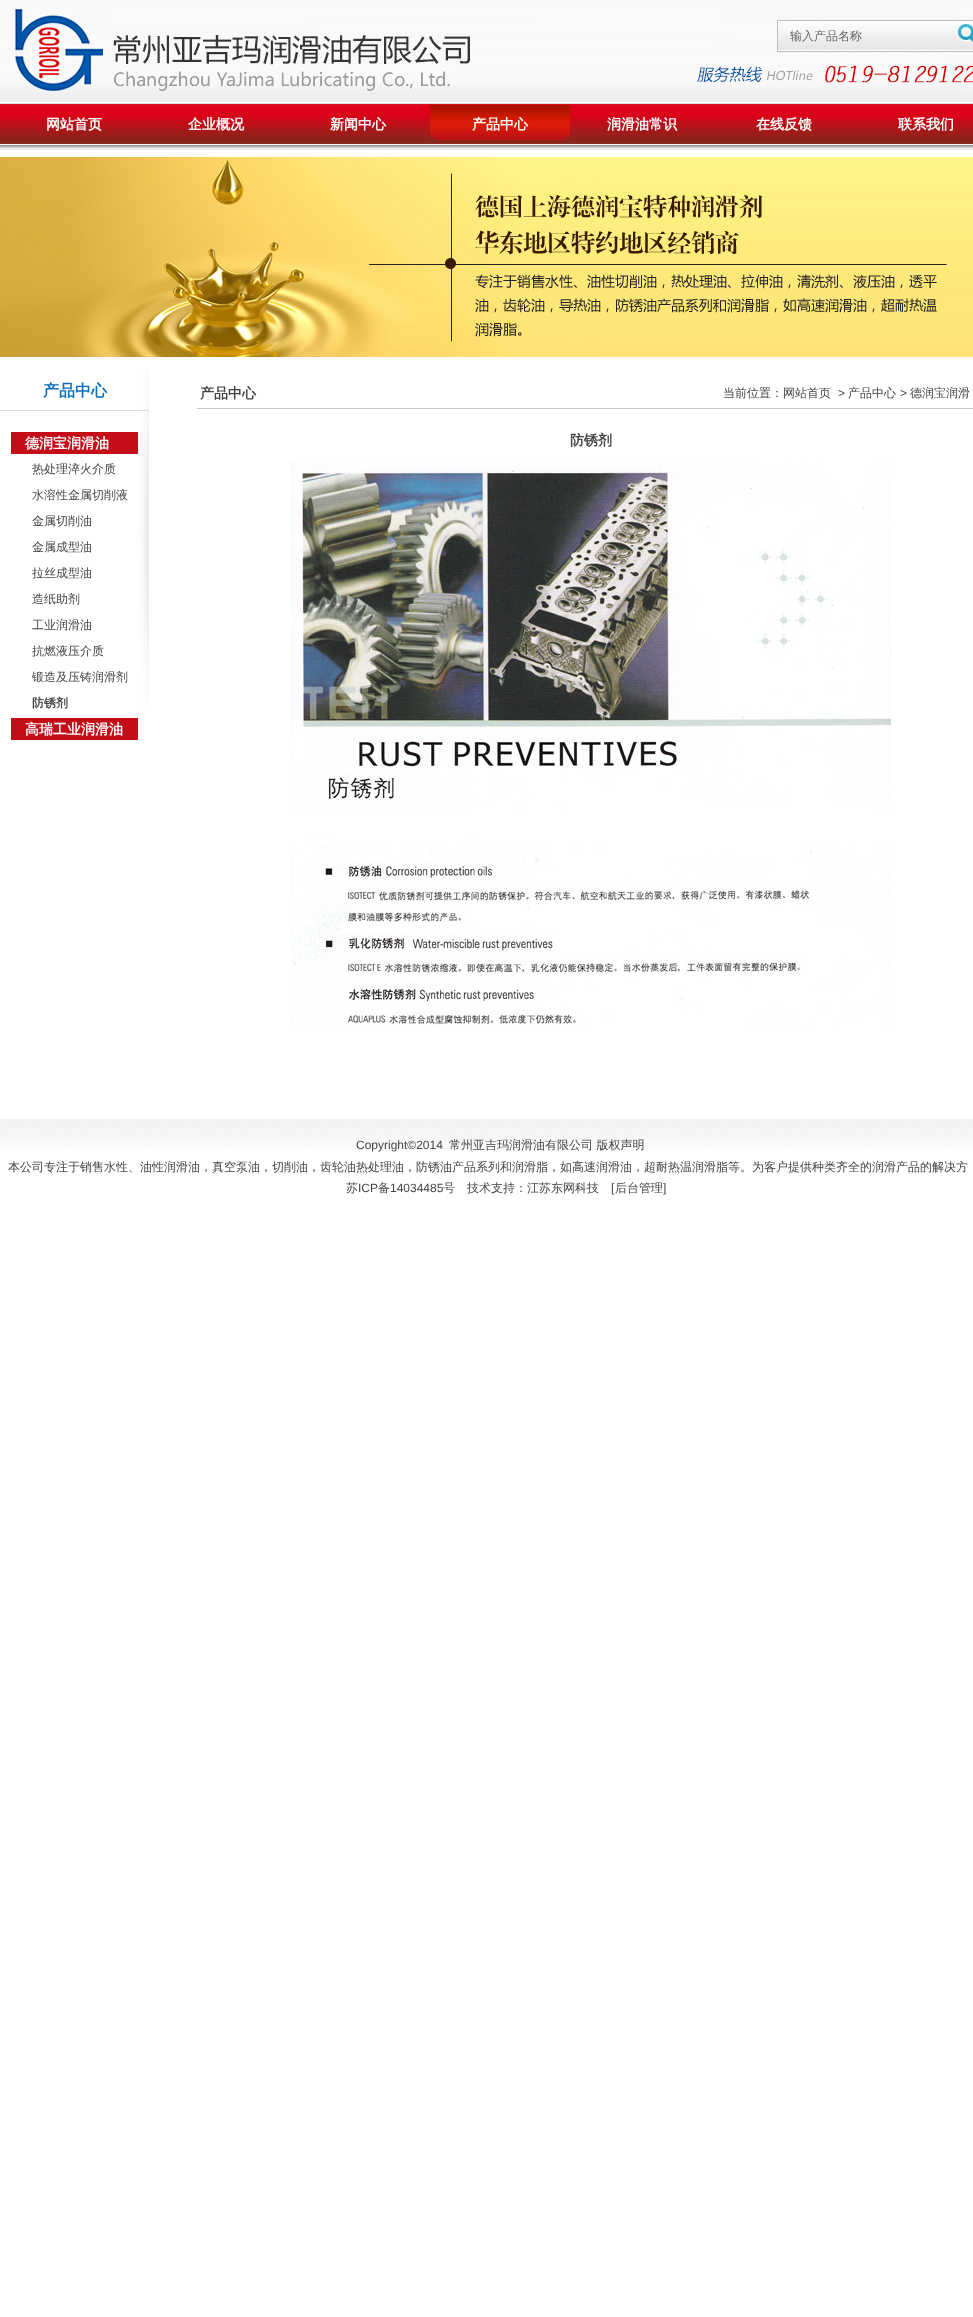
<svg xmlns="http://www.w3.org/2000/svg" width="973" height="2317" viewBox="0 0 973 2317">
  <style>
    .t1 { font: 500 12px WenQuanYi Zen Hei; fill: #666; }
    .t2 { font: bold 14px WenQuanYi Zen Hei; fill: #fff; }
    .t3 { font: bold 16px WenQuanYi Zen Hei; fill: #086fbc; }
    .t4 { font: 500 12px WenQuanYi Zen Hei; fill: #444; }
    .t5 { font: bold 12px WenQuanYi Zen Hei; fill: #444; }
    .t6 { font: bold 14px WenQuanYi Zen Hei; fill: #444; }
    .t7 { font: 12px Liberation Sans; fill: #444; }
  </style>
  <rect width="100%" height="100%" fill="#fff"/>
  <image x="0" y="0" width="973" height="150" href="images/1.png"/>
  <image x="15" y="9" width="958" height="82" href="images/2.png"/>
  <text x="790" y="40" class="t1">输入产品名称</text>
  <image x="959" y="23" width="14" height="25" href="images/3.png"/>
  <text x="46" y="129" class="t2">网站首页</text>
  <text x="188" y="129" class="t2">企业概况</text>
  <text x="330" y="129" class="t2">新闻中心</text>
  <image x="430" y="104" width="140" height="40" href="images/4.png"/>
  <text x="472" y="129" class="t2">产品中心</text>
  <text x="607" y="129" class="t2">润滑油常识</text>
  <text x="756" y="129" class="t2">在线反馈</text>
  <text x="898" y="129" class="t2">联系我们</text>
  <image x="0" y="157" width="973" height="200" href="images/5.png"/>
  <image x="0" y="368" width="149" height="340" href="images/6.png"/>
  <text x="43" y="396" class="t3">产品中心</text>
  <rect x="11" y="432" width="127" height="22" fill="#c50d19"/>
  <text x="25" y="448" class="t2">德润宝润滑油</text>
  <text x="32" y="473" class="t4">热处理淬火介质</text>
  <text x="32" y="499" class="t4">水溶性金属切削液</text>
  <text x="32" y="525" class="t4">金属切削油</text>
  <text x="32" y="551" class="t4">金属成型油</text>
  <text x="32" y="577" class="t4">拉丝成型油</text>
  <text x="32" y="603" class="t4">造纸助剂</text>
  <text x="32" y="629" class="t4">工业润滑油</text>
  <text x="32" y="655" class="t4">抗燃液压介质</text>
  <text x="32" y="681" class="t4">锻造及压铸润滑剂</text>
  <text x="32" y="707" class="t5">防锈剂</text>
  <rect x="11" y="718" width="127" height="22" fill="#c50d19"/>
  <text x="25" y="734" class="t2">高瑞工业润滑油</text>
  <image x="197" y="408" width="776" height="1" href="images/7.png"/>
  <text x="200" y="398" class="t6">产品中心</text>
  <text x="723" y="397" class="t4">当前位置：网站首页</text>
  <text x="838" y="397" class="t7">&gt;</text>
  <text x="848" y="397" class="t4">产品中心</text>
  <text x="900" y="397" class="t7">&gt;</text>
  <text x="910" y="397" class="t4">德润宝润滑</text>
  <text x="570" y="445" class="t6">防锈剂</text>
  <image x="291" y="462" width="600" height="568" href="images/8.png"/>
  <image x="0" y="1119" width="973" height="30" href="images/9.png"/>
  <text x="356" y="1149" class="t7">Copyright©2014</text>
  <text x="449" y="1149" class="t4">常州亚吉玛润滑油有限公司 版权声明</text>
  <text x="8" y="1171" class="t4">本公司专注于销售水性、油性润滑油，真空泵油，切削油，齿轮油热处理油，防锈油产品系列和润滑脂，如高速润滑油，超耐热温润滑脂等。为客户提供种类齐全的润滑产品的解决方</text>
  <text x="346" y="1192" class="t4">苏</text>
  <text x="358" y="1192" class="t7">ICP</text>
  <text x="378" y="1192" class="t4">备</text>
  <text x="390" y="1192" class="t7">14034485</text>
  <text x="443" y="1192" class="t4">号</text>
  <text x="467" y="1192" class="t4">技术支持：江苏东网科技</text>
  <text x="611" y="1192" class="t7">[</text>
  <text x="615" y="1192" class="t4">后台管理</text>
  <text x="663" y="1192" class="t7">]</text>
</svg>
